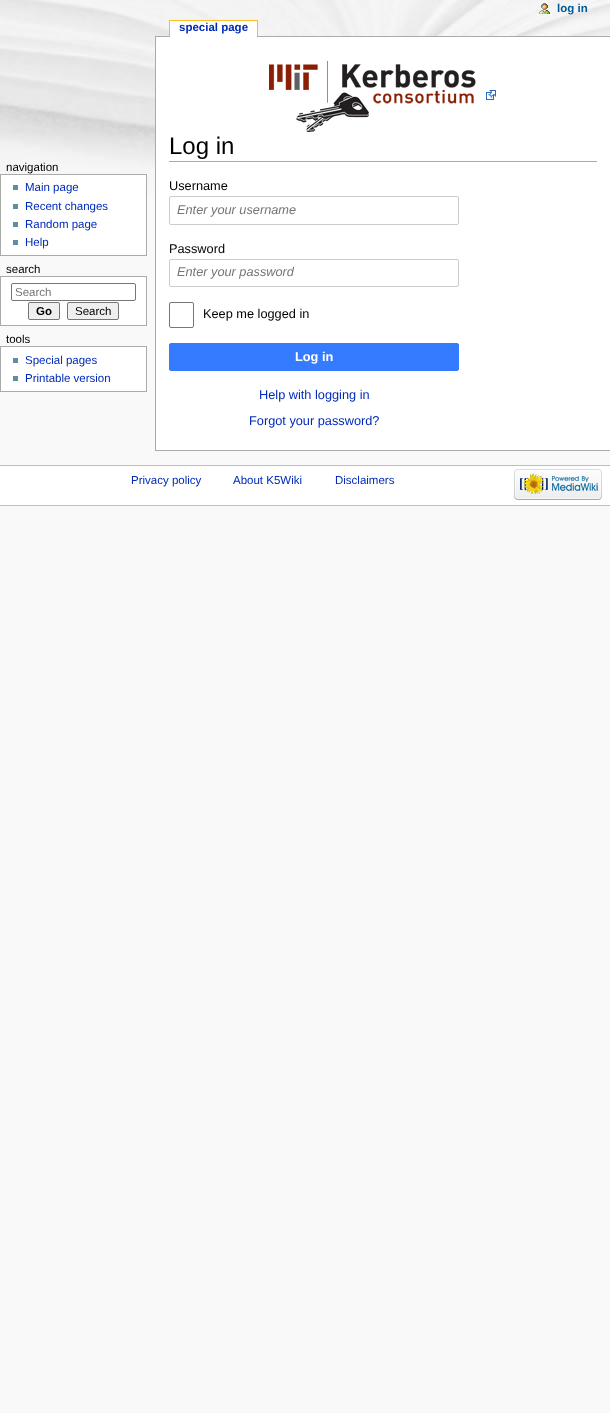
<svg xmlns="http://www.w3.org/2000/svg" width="610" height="1413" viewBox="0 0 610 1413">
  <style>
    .t1 { font: bold 11.5px Liberation Sans; fill: #005896; }
    .t2 { font: bold 11.5px Liberation Sans; fill: #002bb8; }
    .t3 { font: 11.5px Liberation Sans; fill: #000; }
    .t4 { font: 11.5px Liberation Sans; fill: #002bb8; }
    .t5 { font: 11.5px Liberation Sans; fill: #757575; }
    .t6 { font: bold 11.5px Liberation Sans; fill: #000; }
    .t7 { font: 24px Liberation Sans; fill: #000; }
    .t8 { font: 12.75px Liberation Sans; fill: #000; }
    .t9 { font: italic 12.75px Liberation Sans; fill: #757575; }
    .t10 { font: bold 12.75px Liberation Sans; fill: #fff; }
    .t11 { font: 12.75px Liberation Sans; fill: #002bb8; }
  </style>
  <rect width="100%" height="100%" fill="#f9f9f9"/>
  <image x="0" y="0" width="610" height="194" href="images/1.png"/>
  <image x="539" y="3" width="11" height="11" href="images/2.png"/>
  <text x="557" y="12" class="t1">log in</text>
  <rect x="155" y="36" width="455" height="1" fill="#aaa"/>
  <rect x="170" y="21" width="87" height="16" fill="#fff"/>
  <text x="179" y="31" class="t2">special page</text>
  <rect x="169" y="20" width="89" height="1" fill="#fabd23"/>
  <rect x="257" y="20" width="1" height="16" fill="#fabd23"/>
  <rect x="169" y="20" width="1" height="16" fill="#fabd23"/>
  <text x="6" y="171" class="t3">navigation</text>
  <rect x="0.5" y="174.5" width="146" height="81" fill="#fff" stroke="#aaa"/>
  <rect x="13" y="185" width="5" height="5" fill="#638c9c"/>
  <text x="25" y="191" class="t4">Main page</text>
  <rect x="13" y="204" width="5" height="5" fill="#638c9c"/>
  <text x="25" y="210" class="t4">Recent changes</text>
  <rect x="13" y="222" width="5" height="5" fill="#638c9c"/>
  <text x="25" y="228" class="t4">Random page</text>
  <rect x="13" y="240" width="5" height="5" fill="#638c9c"/>
  <text x="25" y="246" class="t4">Help</text>
  <text x="6" y="273" class="t3">search</text>
  <rect x="0.5" y="276.5" width="146" height="49" fill="#fff" stroke="#aaa"/>
  <rect x="11.5" y="283.5" width="124" height="17" rx="1.5" fill="none" stroke="#767676"/>
  <text x="15" y="296" class="t5">Search</text>
  <rect x="28.5" y="302.5" width="31" height="17" rx="1.5" fill="#efefef" stroke="#767676"/>
  <text x="36" y="315" class="t6">Go</text>
  <rect x="67.5" y="302.5" width="51" height="17" rx="1.5" fill="#efefef" stroke="#767676"/>
  <text x="75" y="315" class="t3">Search</text>
  <text x="6" y="343" class="t3">tools</text>
  <rect x="0.5" y="346.5" width="146" height="45" fill="#fff" stroke="#aaa"/>
  <rect x="13" y="358" width="5" height="5" fill="#638c9c"/>
  <text x="25" y="364" class="t4">Special pages</text>
  <rect x="13" y="376" width="5" height="5" fill="#638c9c"/>
  <text x="25" y="382" class="t4">Printable version</text>
  <rect x="156" y="37" width="454" height="413" fill="#fff"/>
  <rect x="155" y="450" width="455" height="1" fill="#aaa"/>
  <rect x="155" y="36" width="1" height="415" fill="#aaa"/>
  <image x="269" y="61" width="207" height="71" href="images/3.png"/>
  <image x="486" y="90" width="10" height="10" href="images/4.png"/>
  <rect x="169" y="161" width="428" height="1" fill="#aaa"/>
  <text x="169" y="154" class="t7">Log in</text>
  <text x="169" y="190" class="t8">Username</text>
  <rect x="169.5" y="196.5" width="289" height="28" rx="1.5" fill="none" stroke="#ccc"/>
  <text x="177" y="214" class="t9">Enter your username</text>
  <text x="169" y="253" class="t8">Password</text>
  <rect x="169.5" y="259.5" width="289" height="27" rx="1.5" fill="none" stroke="#ccc"/>
  <text x="177" y="276" class="t9">Enter your password</text>
  <rect x="169.5" y="302.5" width="24" height="25" rx="1.5" fill="none" stroke="#777"/>
  <text x="203" y="318" class="t8">Keep me logged in</text>
  <rect x="169.5" y="343.5" width="289" height="27" rx="1.5" fill="#347bff" stroke="#347bff"/>
  <text x="295" y="361" class="t10">Log in</text>
  <text x="259" y="399" class="t11">Help with logging in</text>
  <text x="249" y="425" class="t11">Forgot your password?</text>
  <rect x="0" y="466" width="610" height="39" fill="#fff"/>
  <rect x="0" y="465" width="610" height="1" fill="#fabd23"/>
  <rect x="0" y="505" width="610" height="1" fill="#fabd23"/>
  <text x="131" y="484" class="t4">Privacy policy</text>
  <text x="233" y="484" class="t4">About K5Wiki</text>
  <text x="335" y="484" class="t4">Disclaimers</text>
  <image x="514" y="469" width="88" height="31" href="images/5.png"/>
</svg>
